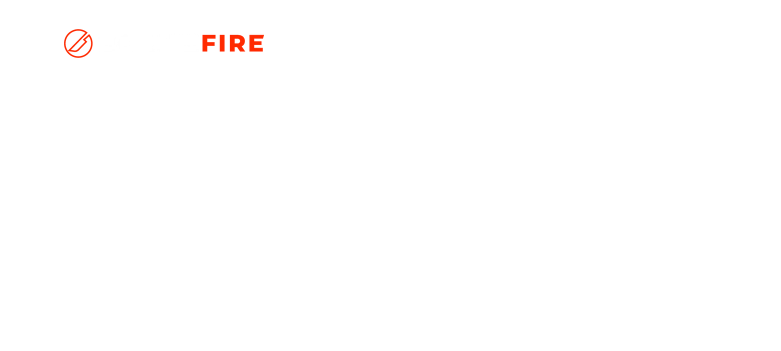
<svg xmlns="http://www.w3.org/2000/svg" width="781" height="351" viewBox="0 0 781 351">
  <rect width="100%" height="100%" fill="#fff"/>
  <image x="64" y="29" width="200" height="29" href="images/1.png"/>
</svg>
